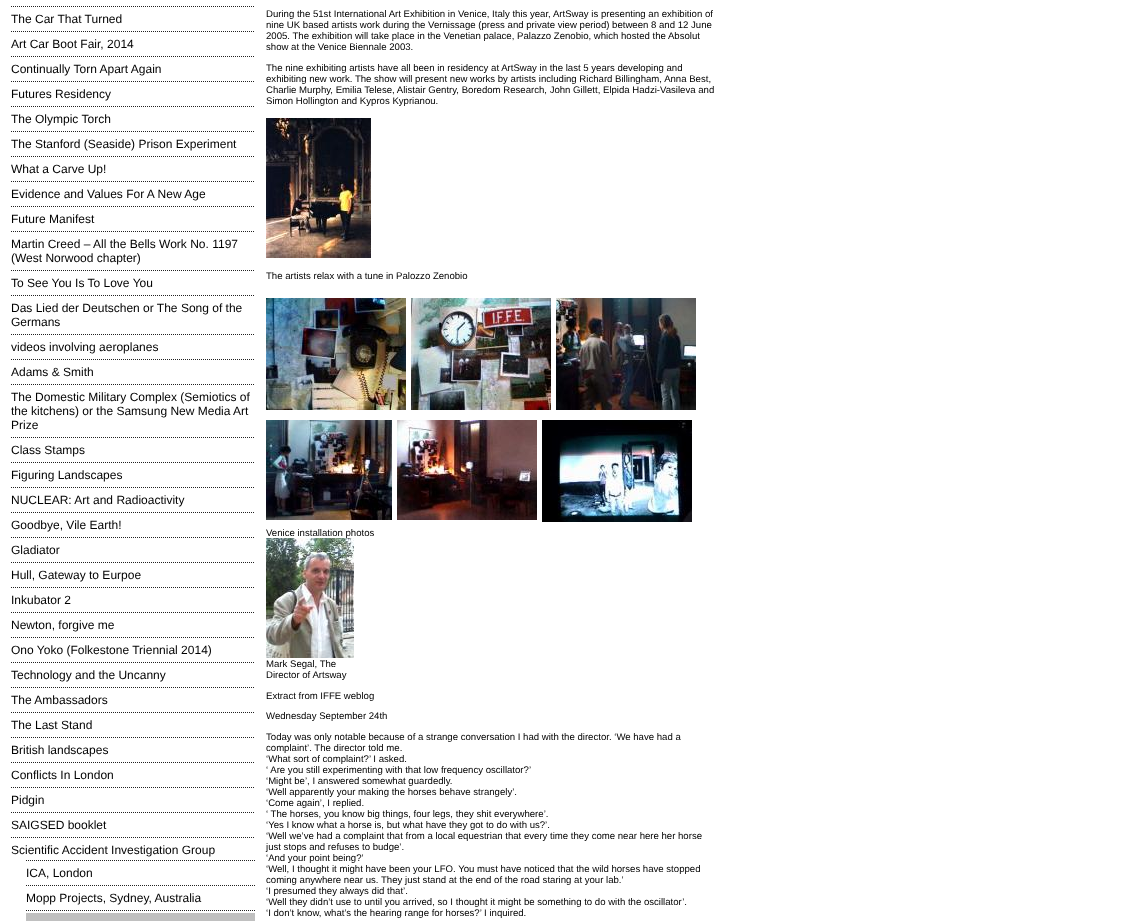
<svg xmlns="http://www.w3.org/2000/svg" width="1121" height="921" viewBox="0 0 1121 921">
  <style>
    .t1 { font: 12px Liberation Sans; fill: #000; }
    .t2 { font: 9.6px Liberation Sans; fill: #000; }
  </style>
  <rect width="100%" height="100%" fill="#fff"/>
  <path d="M11 6.5H255" fill="none" stroke="#222" stroke-dasharray="1 1"/>
  <text x="11" y="23" class="t1">The Car That Turned</text>
  <path d="M11 31.5H255" fill="none" stroke="#222" stroke-dasharray="1 1"/>
  <text x="11" y="48" class="t1">Art Car Boot Fair, 2014</text>
  <path d="M11 56.5H255" fill="none" stroke="#222" stroke-dasharray="1 1"/>
  <text x="11" y="73" class="t1">Continually Torn Apart Again</text>
  <path d="M11 81.5H255" fill="none" stroke="#222" stroke-dasharray="1 1"/>
  <text x="11" y="98" class="t1">Futures Residency</text>
  <path d="M11 106.5H255" fill="none" stroke="#222" stroke-dasharray="1 1"/>
  <text x="11" y="123" class="t1">The Olympic Torch</text>
  <path d="M11 131.5H255" fill="none" stroke="#222" stroke-dasharray="1 1"/>
  <text x="11" y="148" class="t1">The Stanford (Seaside) Prison Experiment</text>
  <path d="M11 156.5H255" fill="none" stroke="#222" stroke-dasharray="1 1"/>
  <text x="11" y="173" class="t1">What a Carve Up!</text>
  <path d="M11 181.5H255" fill="none" stroke="#222" stroke-dasharray="1 1"/>
  <text x="11" y="198" class="t1">Evidence and Values For A New Age</text>
  <path d="M11 206.5H255" fill="none" stroke="#222" stroke-dasharray="1 1"/>
  <text x="11" y="223" class="t1">Future Manifest</text>
  <path d="M11 231.5H255" fill="none" stroke="#222" stroke-dasharray="1 1"/>
  <text x="11" y="248" class="t1">Martin Creed – All the Bells Work No. 1197</text>
  <text x="11" y="262" class="t1">(West Norwood chapter)</text>
  <path d="M11 270.5H255" fill="none" stroke="#222" stroke-dasharray="1 1"/>
  <text x="11" y="287" class="t1">To See You Is To Love You</text>
  <path d="M11 295.5H255" fill="none" stroke="#222" stroke-dasharray="1 1"/>
  <text x="11" y="312" class="t1">Das Lied der Deutschen or The Song of the</text>
  <text x="11" y="326" class="t1">Germans</text>
  <path d="M11 334.5H255" fill="none" stroke="#222" stroke-dasharray="1 1"/>
  <text x="11" y="351" class="t1">videos involving aeroplanes</text>
  <path d="M11 359.5H255" fill="none" stroke="#222" stroke-dasharray="1 1"/>
  <text x="11" y="376" class="t1">Adams &amp; Smith</text>
  <path d="M11 384.5H255" fill="none" stroke="#222" stroke-dasharray="1 1"/>
  <text x="11" y="401" class="t1">The Domestic Military Complex (Semiotics of</text>
  <text x="11" y="415" class="t1">the kitchens) or the Samsung New Media Art</text>
  <text x="11" y="429" class="t1">Prize</text>
  <path d="M11 437.5H255" fill="none" stroke="#222" stroke-dasharray="1 1"/>
  <text x="11" y="454" class="t1">Class Stamps</text>
  <path d="M11 462.5H255" fill="none" stroke="#222" stroke-dasharray="1 1"/>
  <text x="11" y="479" class="t1">Figuring Landscapes</text>
  <path d="M11 487.5H255" fill="none" stroke="#222" stroke-dasharray="1 1"/>
  <text x="11" y="504" class="t1">NUCLEAR: Art and Radioactivity</text>
  <path d="M11 512.5H255" fill="none" stroke="#222" stroke-dasharray="1 1"/>
  <text x="11" y="529" class="t1">Goodbye, Vile Earth!</text>
  <path d="M11 537.5H255" fill="none" stroke="#222" stroke-dasharray="1 1"/>
  <text x="11" y="554" class="t1">Gladiator</text>
  <path d="M11 562.5H255" fill="none" stroke="#222" stroke-dasharray="1 1"/>
  <text x="11" y="579" class="t1">Hull, Gateway to Eurpoe</text>
  <path d="M11 587.5H255" fill="none" stroke="#222" stroke-dasharray="1 1"/>
  <text x="11" y="604" class="t1">Inkubator 2</text>
  <path d="M11 612.5H255" fill="none" stroke="#222" stroke-dasharray="1 1"/>
  <text x="11" y="629" class="t1">Newton, forgive me</text>
  <path d="M11 637.5H255" fill="none" stroke="#222" stroke-dasharray="1 1"/>
  <text x="11" y="654" class="t1">Ono Yoko (Folkestone Triennial 2014)</text>
  <path d="M11 662.5H255" fill="none" stroke="#222" stroke-dasharray="1 1"/>
  <text x="11" y="679" class="t1">Technology and the Uncanny</text>
  <path d="M11 687.5H255" fill="none" stroke="#222" stroke-dasharray="1 1"/>
  <text x="11" y="704" class="t1">The Ambassadors</text>
  <path d="M11 712.5H255" fill="none" stroke="#222" stroke-dasharray="1 1"/>
  <text x="11" y="729" class="t1">The Last Stand</text>
  <path d="M11 737.5H255" fill="none" stroke="#222" stroke-dasharray="1 1"/>
  <text x="11" y="754" class="t1">British landscapes</text>
  <path d="M11 762.5H255" fill="none" stroke="#222" stroke-dasharray="1 1"/>
  <text x="11" y="779" class="t1">Conflicts In London</text>
  <path d="M11 787.5H255" fill="none" stroke="#222" stroke-dasharray="1 1"/>
  <text x="11" y="804" class="t1">Pidgin</text>
  <path d="M11 812.5H255" fill="none" stroke="#222" stroke-dasharray="1 1"/>
  <text x="11" y="829" class="t1">SAIGSED booklet</text>
  <path d="M11 837.5H255" fill="none" stroke="#222" stroke-dasharray="1 1"/>
  <text x="11" y="854" class="t1">Scientific Accident Investigation Group</text>
  <path d="M26 860.5H255" fill="none" stroke="#222" stroke-dasharray="1 1"/>
  <text x="26" y="877" class="t1">ICA, London</text>
  <path d="M26 885.5H255" fill="none" stroke="#222" stroke-dasharray="1 1"/>
  <text x="26" y="902" class="t1">Mopp Projects, Sydney, Australia</text>
  <path d="M26 910.5H255" fill="none" stroke="#222" stroke-dasharray="1 1"/>
  <rect x="26" y="913" width="229" height="8" fill="#c0c0c0"/>
  <text x="266" y="17" class="t2">During the 51st International Art Exhibition in Venice, Italy this year, ArtSway is presenting an exhibition of</text>
  <text x="266" y="28" class="t2">nine UK based artists work during the Vernissage (press and private view period) between 8 and 12 June</text>
  <text x="266" y="39" class="t2">2005. The exhibition will take place in the Venetian palace, Palazzo Zenobio, which hosted the Absolut</text>
  <text x="266" y="50" class="t2">show at the Venice Biennale 2003.</text>
  <text x="266" y="71" class="t2">The nine exhibiting artists have all been in residency at ArtSway in the last 5 years developing and</text>
  <text x="266" y="82" class="t2">exhibiting new work. The show will present new works by artists including Richard Billingham, Anna Best,</text>
  <text x="266" y="93" class="t2">Charlie Murphy, Emilia Telese, Alistair Gentry, Boredom Research, John Gillett, Elpida Hadzi-Vasileva and</text>
  <text x="266" y="104" class="t2">Simon Hollington and Kypros Kyprianou.</text>
  <image x="266" y="118" width="105" height="140" href="images/1.png"/>
  <text x="266" y="279" class="t2">The artists relax with a tune in Palozzo Zenobio</text>
  <image x="266" y="298" width="140" height="112" href="images/2.png"/>
  <image x="411" y="298" width="140" height="112" href="images/3.png"/>
  <image x="556" y="298" width="140" height="112" href="images/4.png"/>
  <image x="266" y="420" width="126" height="100" href="images/5.png"/>
  <image x="397" y="420" width="140" height="100" href="images/6.png"/>
  <image x="542" y="420" width="150" height="102" href="images/7.png"/>
  <text x="266" y="536" class="t2">Venice installation photos</text>
  <image x="266" y="538" width="88" height="120" href="images/8.png"/>
  <text x="266" y="667" class="t2">Mark Segal, The</text>
  <text x="266" y="678" class="t2">Director of Artsway</text>
  <text x="266" y="699" class="t2">Extract from IFFE weblog</text>
  <text x="266" y="719" class="t2">Wednesday September 24th</text>
  <text x="266" y="740" class="t2">Today was only notable because of a strange conversation I had with the director. ‘We have had a</text>
  <text x="266" y="751" class="t2">complaint’. The director told me.</text>
  <text x="266" y="762" class="t2">‘What sort of complaint?’ I asked.</text>
  <text x="266" y="773" class="t2">‘ Are you still experimenting with that low frequency oscillator?’</text>
  <text x="266" y="784" class="t2">‘Might be’, I answered somewhat guardedly.</text>
  <text x="266" y="795" class="t2">‘Well apparently your making the horses behave strangely’.</text>
  <text x="266" y="806" class="t2">‘Come again’, I replied.</text>
  <text x="266" y="817" class="t2">‘ The horses, you know big things, four legs, they shit everywhere’.</text>
  <text x="266" y="828" class="t2">‘Yes I know what a horse is, but what have they got to do with us?’.</text>
  <text x="266" y="839" class="t2">‘Well we’ve had a complaint that from a local equestrian that every time they come near here her horse</text>
  <text x="266" y="850" class="t2">just stops and refuses to budge’.</text>
  <text x="266" y="861" class="t2">‘And your point being?’</text>
  <text x="266" y="872" class="t2">‘Well, I thought it might have been your LFO. You must have noticed that the wild horses have stopped</text>
  <text x="266" y="883" class="t2">coming anywhere near us. They just stand at the end of the road staring at your lab.’</text>
  <text x="266" y="894" class="t2">‘I presumed they always did that’.</text>
  <text x="266" y="905" class="t2">‘Well they didn’t use to until you arrived, so I thought it might be something to do with the oscillator’.</text>
  <text x="266" y="916" class="t2">‘I don’t know, what’s the hearing range for horses?’ I inquired.</text>
</svg>
